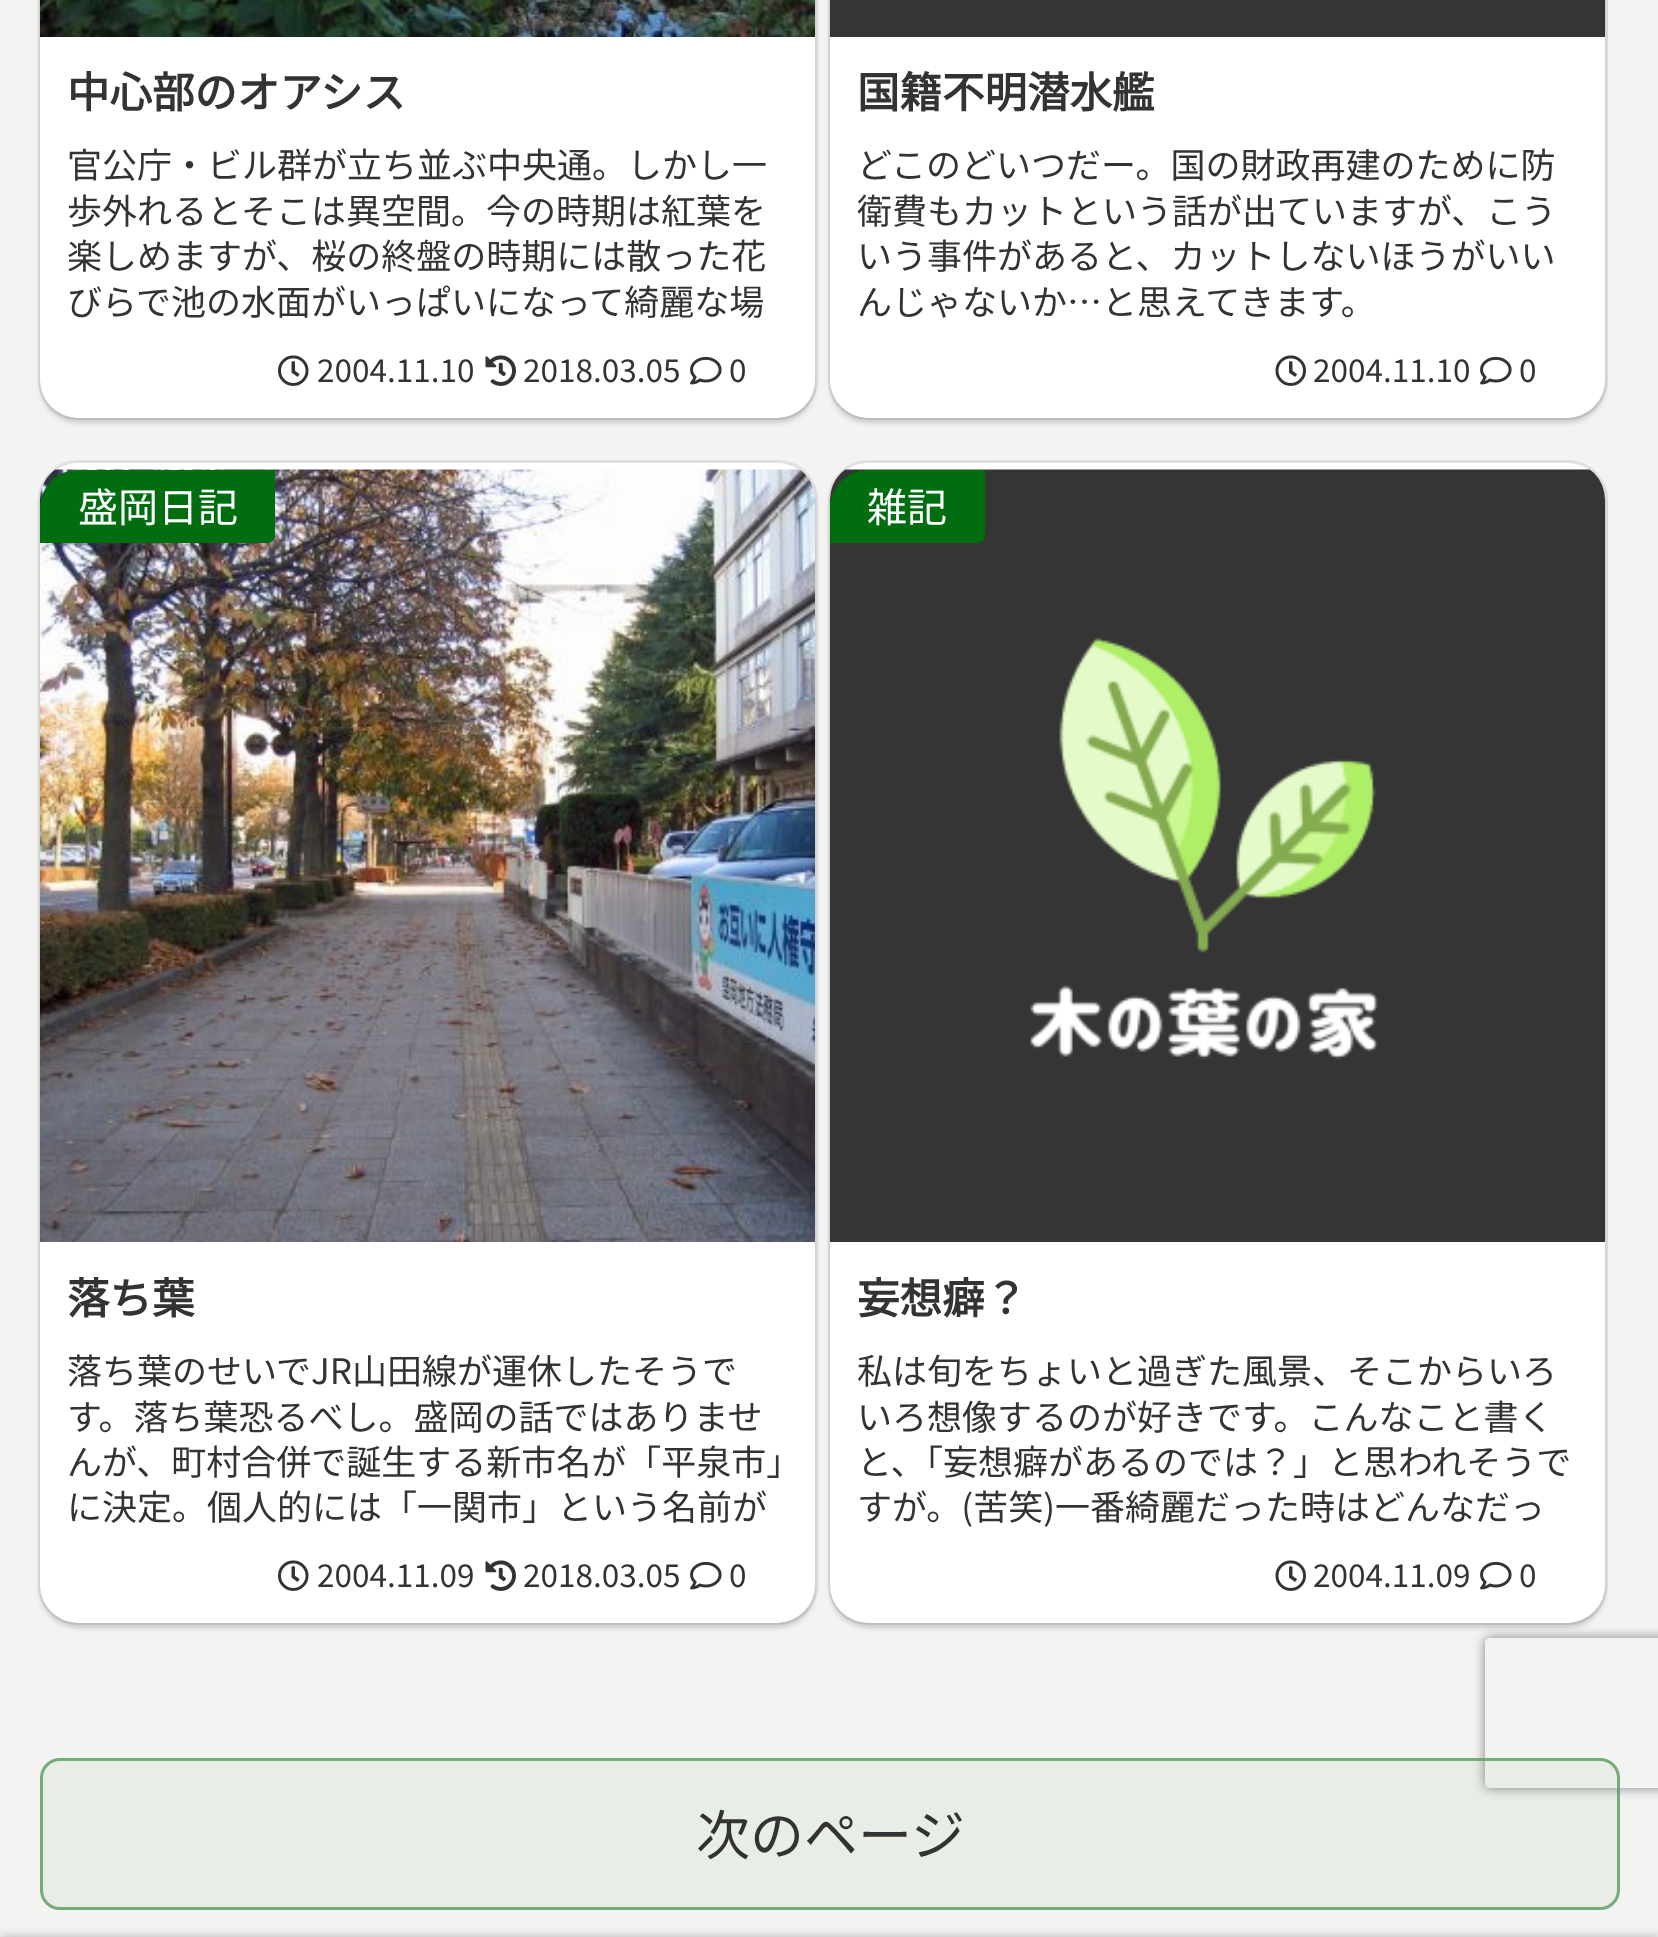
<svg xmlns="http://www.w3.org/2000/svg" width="1658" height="1937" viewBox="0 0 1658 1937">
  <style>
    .t1 { font: bold 42.5px Noto Sans JP; fill: #333; }
    .t2 { font: 100 35px Noto Sans JP; fill: #333; }
    .t3 { font: 100 31.5px Noto Sans JP; fill: #333; }
    .t4 { font: 100 40px Noto Sans JP; fill: #fff; }
    .t5 { font: 100 54px Noto Sans JP; fill: #333; }
  </style>
  <defs>
    <clipPath id="clip1"><rect x="858" y="1348" width="720" height="180"/></clipPath>
    <clipPath id="clip2"><path d="M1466 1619H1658V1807H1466ZM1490 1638H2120C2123 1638 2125 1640 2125 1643V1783C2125 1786 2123 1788 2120 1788H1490C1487 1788 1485 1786 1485 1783V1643C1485 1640 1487 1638 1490 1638Z" clip-rule="evenodd"/></clipPath>
  </defs>
  <rect width="100%" height="100%" fill="#f3f3f2"/>
  <rect x="39.5" y="-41.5" width="777" height="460" rx="38.5" fill="none" stroke="#e0e0df" stroke-width="3"/>
  <rect x="40" y="-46" width="775" height="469" rx="38" fill="#00000029" filter="blur(2.5px)"/>
  <rect x="40" y="-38" width="775" height="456" rx="38" fill="#fff"/>
  <image x="40" y="0" width="775" height="37" href="images/1.png"/>
  <text x="67" y="108" class="t1">中心部のオアシス</text>
  <text x="67" y="178" class="t2">官公庁・ビル群が立ち並ぶ中央通。しかし一</text>
  <text x="67" y="224" class="t2">歩外れるとそこは異空間。今の時期は紅葉を</text>
  <text x="67" y="269" class="t2">楽しめますが、桜の終盤の時期には散った花</text>
  <text x="67" y="315" class="t2">びらで池の水面がいっぱいになって綺麗な場</text>
  <image x="278" y="355" width="31" height="31" href="images/2.png"/>
  <text x="317" y="382" class="t3">2004.11.10</text>
  <image x="485" y="355" width="31" height="31" href="images/3.png"/>
  <text x="523" y="382" class="t3">2018.03.05</text>
  <image x="690" y="356" width="32" height="29" href="images/4.png"/>
  <text x="729" y="382" class="t3">0</text>
  <rect x="829.5" y="-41.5" width="777" height="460" rx="38.5" fill="none" stroke="#e0e0df" stroke-width="3"/>
  <rect x="830" y="-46" width="775" height="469" rx="38" fill="#00000029" filter="blur(2.5px)"/>
  <rect x="830" y="-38" width="775" height="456" rx="38" fill="#fff"/>
  <rect x="830" y="0" width="775" height="37" fill="#353535"/>
  <text x="857" y="108" class="t1">国籍不明潜水艦</text>
  <text x="857" y="178" class="t2">どこのどいつだー。国の財政再建のために防</text>
  <text x="857" y="224" class="t2">衛費もカットという話が出ていますが、こう</text>
  <text x="857" y="269" class="t2">いう事件があると、カットしないほうがいい</text>
  <text x="857" y="315" class="t2">んじゃないか…と思えてきます。</text>
  <image x="1275" y="355" width="31" height="31" href="images/5.png"/>
  <text x="1313" y="382" class="t3">2004.11.10</text>
  <image x="1480" y="356" width="32" height="29" href="images/4.png"/>
  <text x="1519" y="382" class="t3">0</text>
  <rect x="39.5" y="461.5" width="777" height="1162" rx="38.5" fill="none" stroke="#e0e0df" stroke-width="3"/>
  <rect x="40" y="468" width="775" height="1160" rx="38" fill="#00000029" filter="blur(2.5px)"/>
  <rect x="40" y="463" width="775" height="1160" rx="38" fill="#fff"/>
  <image x="40" y="469" width="775" height="773" href="images/6.png"/>
  <path d="M78 470H275V535C275 539.5 271.5 543 267 543H40V508C40 487 57 470 78 470Z" fill="#006d10"/>
  <text x="78" y="522" class="t4">盛岡日記</text>
  <text x="67" y="1314" class="t1">落ち葉</text>
  <text x="67" y="1384" class="t2">落ち葉のせいでJR山田線が運休したそうで</text>
  <text x="67" y="1430" class="t2">す。落ち葉恐るべし。盛岡の話ではありませ</text>
  <text x="67" y="1475" class="t2">んが、町村合併で誕生する新市名が「平泉市」</text>
  <text x="67" y="1520" class="t2">に決定。個人的には「一関市」という名前が</text>
  <image x="278" y="1560" width="31" height="31" href="images/2.png"/>
  <text x="317" y="1587" class="t3">2004.11.09</text>
  <image x="485" y="1560" width="31" height="31" href="images/3.png"/>
  <text x="523" y="1587" class="t3">2018.03.05</text>
  <image x="690" y="1561" width="32" height="29" href="images/4.png"/>
  <text x="729" y="1587" class="t3">0</text>
  <rect x="829.5" y="461.5" width="777" height="1162" rx="38.5" fill="none" stroke="#e0e0df" stroke-width="3"/>
  <rect x="830" y="468" width="775" height="1160" rx="38" fill="#00000029" filter="blur(2.5px)"/>
  <rect x="830" y="463" width="775" height="1160" rx="38" fill="#fff"/>
  <image x="830" y="469" width="775" height="773" href="images/7.png"/>
  <path d="M868 470H985V535C985 539.5 981.5 543 977 543H830V508C830 487 847 470 868 470Z" fill="#006d10"/>
  <text x="867" y="522" class="t4">雑記</text>
  <text x="857" y="1314" class="t1">妄想癖？</text>
  <text x="857" y="1384" class="t2">私は旬をちょいと過ぎた風景、そこからいろ</text>
  <text x="857" y="1430" class="t2">いろ想像するのが好きです。こんなこと書く</text>
  <g clip-path="url(#clip1)">
    <text x="857" y="1475" class="t2">と、「妄想癖があるのでは？」と思われそうで</text>
  </g>
  <text x="857" y="1520" class="t2">すが。(苦笑)一番綺麗だった時はどんなだっ</text>
  <image x="1275" y="1560" width="31" height="31" href="images/5.png"/>
  <text x="1313" y="1587" class="t3">2004.11.09</text>
  <image x="1480" y="1561" width="32" height="29" href="images/4.png"/>
  <text x="1519" y="1587" class="t3">0</text>
  <rect x="40" y="1758" width="1580" height="152" rx="20" fill="#e8ede6"/>
  <rect x="41.5" y="1759.5" width="1577" height="149" rx="18.5" fill="none" stroke="#006d1080" stroke-width="3"/>
  <text x="696" y="1855" class="t5">次のページ</text>
  <rect x="0" y="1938" width="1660" height="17" fill="#a9a9a9" filter="blur(6px)"/>
  <g clip-path="url(#clip2)">
    <rect x="1485" y="1638" width="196" height="150" rx="5" fill="#808080" filter="blur(6px)"/>
  </g>
</svg>
